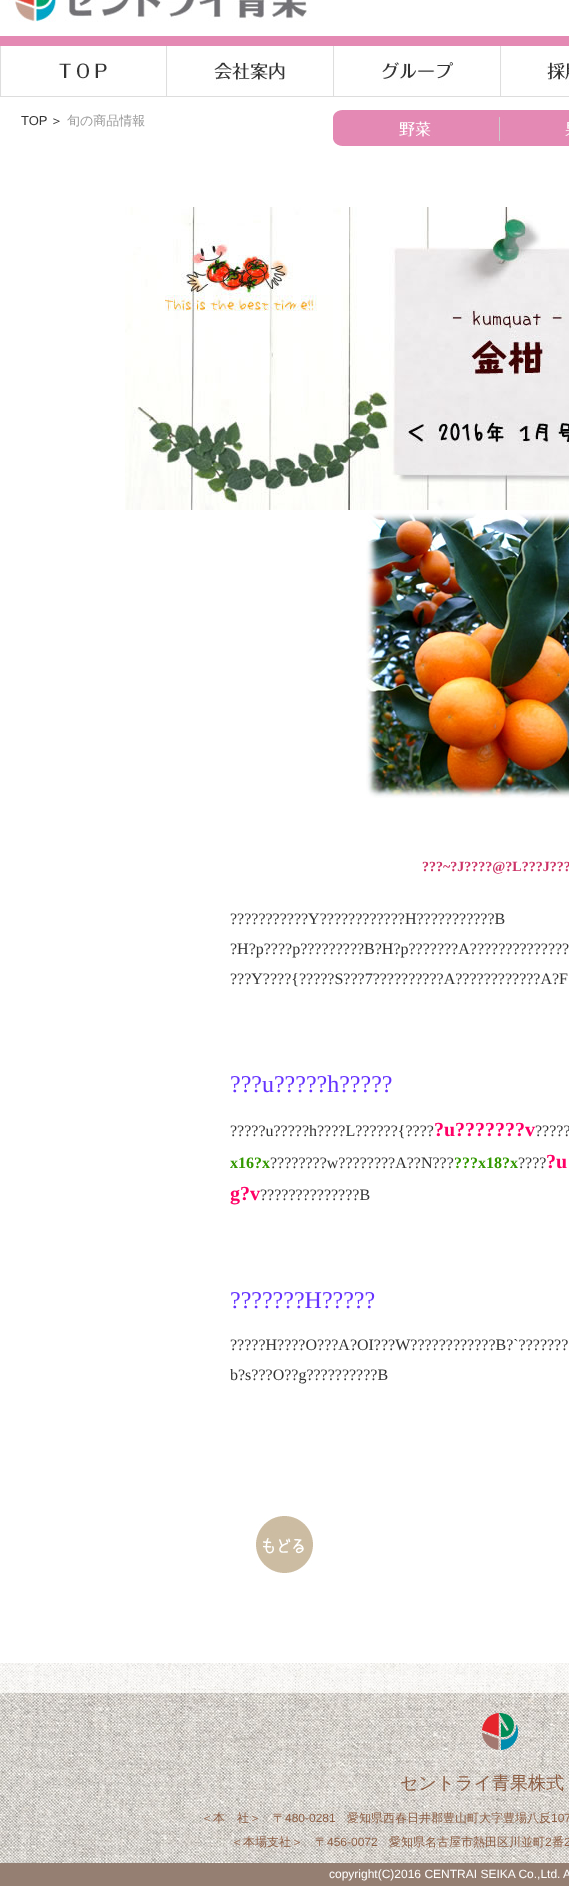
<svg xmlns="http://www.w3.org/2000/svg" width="569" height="1886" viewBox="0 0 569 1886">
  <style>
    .t1 { font: 13px Liberation Sans; fill: #333; }
    .t2 { font: 500 13px WenQuanYi Zen Hei; fill: #333; }
    .t3 { font: 500 13px WenQuanYi Zen Hei; fill: #999; }
    .t4 { font: bold 14px Liberation Serif; fill: #c36; }
    .t5 { font: 16px Liberation Serif; fill: #333; }
    .t6 { font: 24px Liberation Serif; fill: #63f; }
    .t7 { font: bold 20px Liberation Serif; fill: #f06; }
    .t8 { font: bold 16px Liberation Serif; fill: #390; }
    .t9 { font: 500 18px WenQuanYi Zen Hei; fill: #8d5f45; }
    .t10 { font: 500 12px WenQuanYi Zen Hei; fill: #8d5f45; }
    .t11 { font: 12px Liberation Sans; fill: #8d5f45; }
    .t12 { font: 12px Liberation Sans; fill: #fff; }
  </style>
  <rect width="100%" height="100%" fill="#fff"/>
  <image x="8" y="0" width="302" height="22" href="images/1.png"/>
  <rect x="0" y="96" width="569" height="1" fill="#ddd"/>
  <rect x="0" y="36" width="569" height="10" fill="#e489b3"/>
  <image x="0" y="46" width="107" height="50" href="images/2.png"/>
  <image x="166" y="46" width="119" height="50" href="images/3.png"/>
  <image x="333" y="46" width="120" height="50" href="images/4.png"/>
  <image x="500" y="46" width="69" height="50" href="images/5.png"/>
  <text x="21" y="125" class="t1">TOP</text>
  <text x="50" y="125" class="t2">＞</text>
  <text x="67" y="125" class="t3">旬の商品情報</text>
  <image x="333" y="110" width="166" height="36" href="images/6.png"/>
  <image x="499" y="110" width="70" height="36" href="images/7.png"/>
  <image x="125" y="207" width="444" height="303" href="images/8.png"/>
  <image x="366" y="513" width="203" height="285" href="images/9.png"/>
  <text x="422" y="871" class="t4">???~?J????@?L???J???</text>
  <text x="230" y="924" class="t5">???????????Y????????????H???????????B</text>
  <text x="230" y="954" class="t5">?H?p????p?????????B?H?p???????A??????????????</text>
  <text x="230" y="984" class="t5">???Y????{?????S???7??????????A????????????A?F</text>
  <text x="230" y="1092" class="t6">???u?????h?????</text>
  <text x="230" y="1136" class="t5">?????u?????h????L??????{????</text>
  <text x="434" y="1136" class="t7">?u???????v</text>
  <text x="535" y="1136" class="t5">?????</text>
  <text x="230" y="1168" class="t8">x16?x</text>
  <text x="270" y="1168" class="t5">????????w????????A??N???</text>
  <text x="454" y="1168" class="t8">???x18?x</text>
  <text x="518" y="1168" class="t5">????</text>
  <text x="546" y="1168" class="t7">?u</text>
  <text x="230" y="1200" class="t7">g?v</text>
  <text x="260" y="1200" class="t5">??????????????B</text>
  <text x="230" y="1308" class="t6">???????H?????</text>
  <text x="230" y="1350" class="t5">?????H????O???A?OI???W????????????B?`???????</text>
  <text x="230" y="1380" class="t5">b?s???O??g??????????B</text>
  <image x="256" y="1516" width="57" height="57" href="images/10.png"/>
  <image x="0" y="1663" width="569" height="223" href="images/11.png"/>
  <image x="482" y="1713" width="36" height="37" href="images/12.png"/>
  <text x="400" y="1789" class="t9">セントライ青果株式</text>
  <text x="201" y="1822" class="t10">＜本　社＞　〒</text>
  <text x="285" y="1822" class="t11">480-0281</text>
  <text x="347" y="1822" class="t10">愛知県西春日井郡豊山町大字豊場八反</text>
  <text x="551" y="1822" class="t11">107</text>
  <text x="231" y="1846" class="t10">＜本場支社＞　〒</text>
  <text x="327" y="1846" class="t11">456-0072</text>
  <text x="389" y="1846" class="t10">愛知県名古屋市熱田区川並町</text>
  <text x="545" y="1846" class="t11">2</text>
  <text x="552" y="1846" class="t10">番</text>
  <text x="564" y="1846" class="t11">2</text>
  <text x="329" y="1878" class="t12">copyright(C)2016 CENTRAI SEIKA Co.,Ltd. A</text>
</svg>
